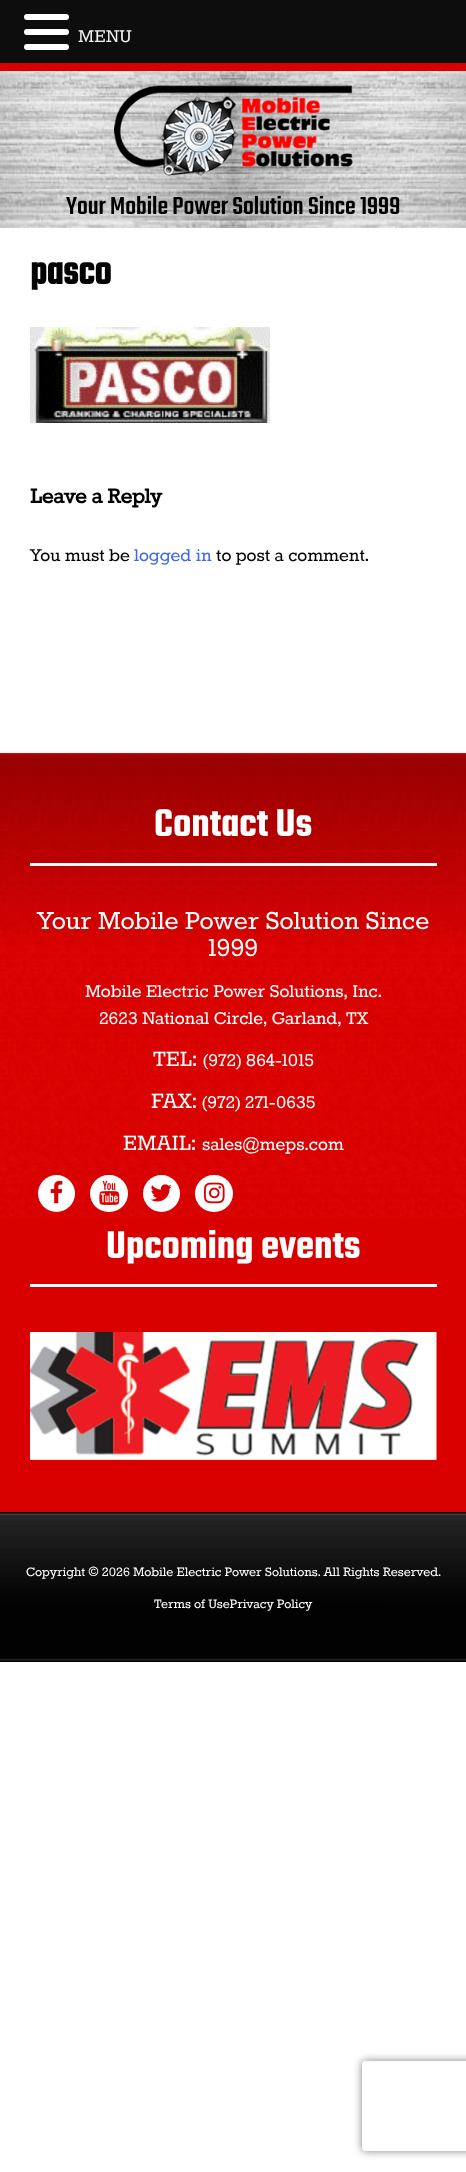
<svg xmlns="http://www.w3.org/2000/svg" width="466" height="2172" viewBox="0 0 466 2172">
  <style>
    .t1 { font: 21px Rokkitt; fill: #f2f2f2; }
    .t2 { font: 500 27px Teko; fill: #000; }
    .t3 { font: bold 42px Teko; fill: #000; }
    .t4 { font: bold 24.5px Rokkitt; fill: #000; }
    .t5 { font: 21px Rokkitt; fill: #000; }
    .t6 { font: 21px Rokkitt; fill: #4169e1; }
    .t7 { font: 600 42px Teko; fill: #fff; }
    .t8 { font: 30px Rokkitt; fill: #fff; }
    .t9 { font: 21px Rokkitt; fill: #fff; }
    .t10 { font: 25.5px Rokkitt; fill: #fff; }
    .t11 { font: 15px Rokkitt; fill: #fff; }
  </style>
  <defs>
    <clipPath id="clip1"><path d="M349 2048H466V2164H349ZM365 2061H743C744.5 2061 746 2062.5 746 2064V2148C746 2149.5 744.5 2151 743 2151H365C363.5 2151 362 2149.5 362 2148V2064C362 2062.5 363.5 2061 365 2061Z" clip-rule="evenodd"/></clipPath>
  </defs>
  <rect width="100%" height="100%" fill="#fff"/>
  <rect x="0" y="0" width="466" height="63" fill="#0d0d0d"/>
  <rect x="24" y="14" width="45" height="6" rx="3" fill="#fff"/>
  <rect x="24" y="29" width="45" height="6" rx="3" fill="#fff"/>
  <rect x="24" y="44" width="45" height="6" rx="3" fill="#fff"/>
  <text x="78" y="42" class="t1">MENU</text>
  <image x="0" y="71" width="466" height="157" href="images/1.png"/>
  <rect x="0" y="63" width="466" height="8" fill="#d90000"/>
  <image x="114" y="85" width="239" height="91" href="images/2.png"/>
  <text x="66" y="214" class="t2">Your Mobile Power Solution Since 1999</text>
  <text x="30" y="284" class="t3">pasco</text>
  <image x="30" y="327" width="240" height="96" href="images/3.png"/>
  <text x="30" y="503" class="t4">Leave a Reply</text>
  <text x="30" y="561" class="t5">You must be</text>
  <text x="134" y="561" class="t6">logged in</text>
  <text x="216" y="561" class="t5">to post a comment.</text>
  <rect x="0" y="1218" width="466" height="294" fill="#d90000"/>
  <image x="0" y="753" width="466" height="465" href="images/4.png"/>
  <rect x="30" y="863" width="407" height="3" fill="#fff"/>
  <text x="154" y="836" class="t7">Contact Us</text>
  <text x="37" y="929" class="t8">Your Mobile Power Solution Since</text>
  <text x="208" y="956" class="t8">1999</text>
  <text x="85" y="997" class="t9">Mobile Electric Power Solutions, Inc.</text>
  <text x="99" y="1024" class="t9">2623 National Circle, Garland, TX</text>
  <text x="153" y="1066" class="t10">TEL:</text>
  <text x="203" y="1066" class="t9">(972) 864-1015</text>
  <text x="151" y="1108" class="t10">FAX:</text>
  <text x="202" y="1108" class="t9">(972) 271-0635</text>
  <text x="123" y="1150" class="t10">EMAIL:</text>
  <text x="202" y="1150" class="t9">sales@meps.com</text>
  <circle cx="56.5" cy="1193.5" r="18.5" fill="#fff"/>
  <image x="50" y="1180" width="13" height="24" href="images/5.png"/>
  <rect x="90" y="1175" width="38" height="37" rx="18.5" fill="#fff"/>
  <image x="99" y="1180" width="21" height="25" href="images/6.png"/>
  <circle cx="161.5" cy="1193.5" r="18.5" fill="#fff"/>
  <image x="150" y="1184" width="22" height="18" href="images/7.png"/>
  <rect x="195" y="1175" width="38" height="37" rx="18.5" fill="#fff"/>
  <image x="204" y="1182" width="21" height="22" href="images/8.png"/>
  <rect x="30" y="1284" width="407" height="3" fill="#fff"/>
  <text x="106" y="1258" class="t7">Upcoming events</text>
  <image x="30" y="1332" width="407" height="128" href="images/9.png"/>
  <rect x="0" y="1512" width="466" height="150" fill="#000"/>
  <image x="0" y="1513" width="466" height="148" href="images/10.png"/>
  <text x="26" y="1576" class="t11">Copyright © 2026 Mobile Electric Power Solutions. All Rights Reserved.</text>
  <text x="154" y="1608" class="t11">Terms of UsePrivacy Policy</text>
  <g clip-path="url(#clip1)">
    <rect x="362" y="2061" width="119" height="90" rx="3" fill="#808080" filter="blur(4px)"/>
  </g>
</svg>
